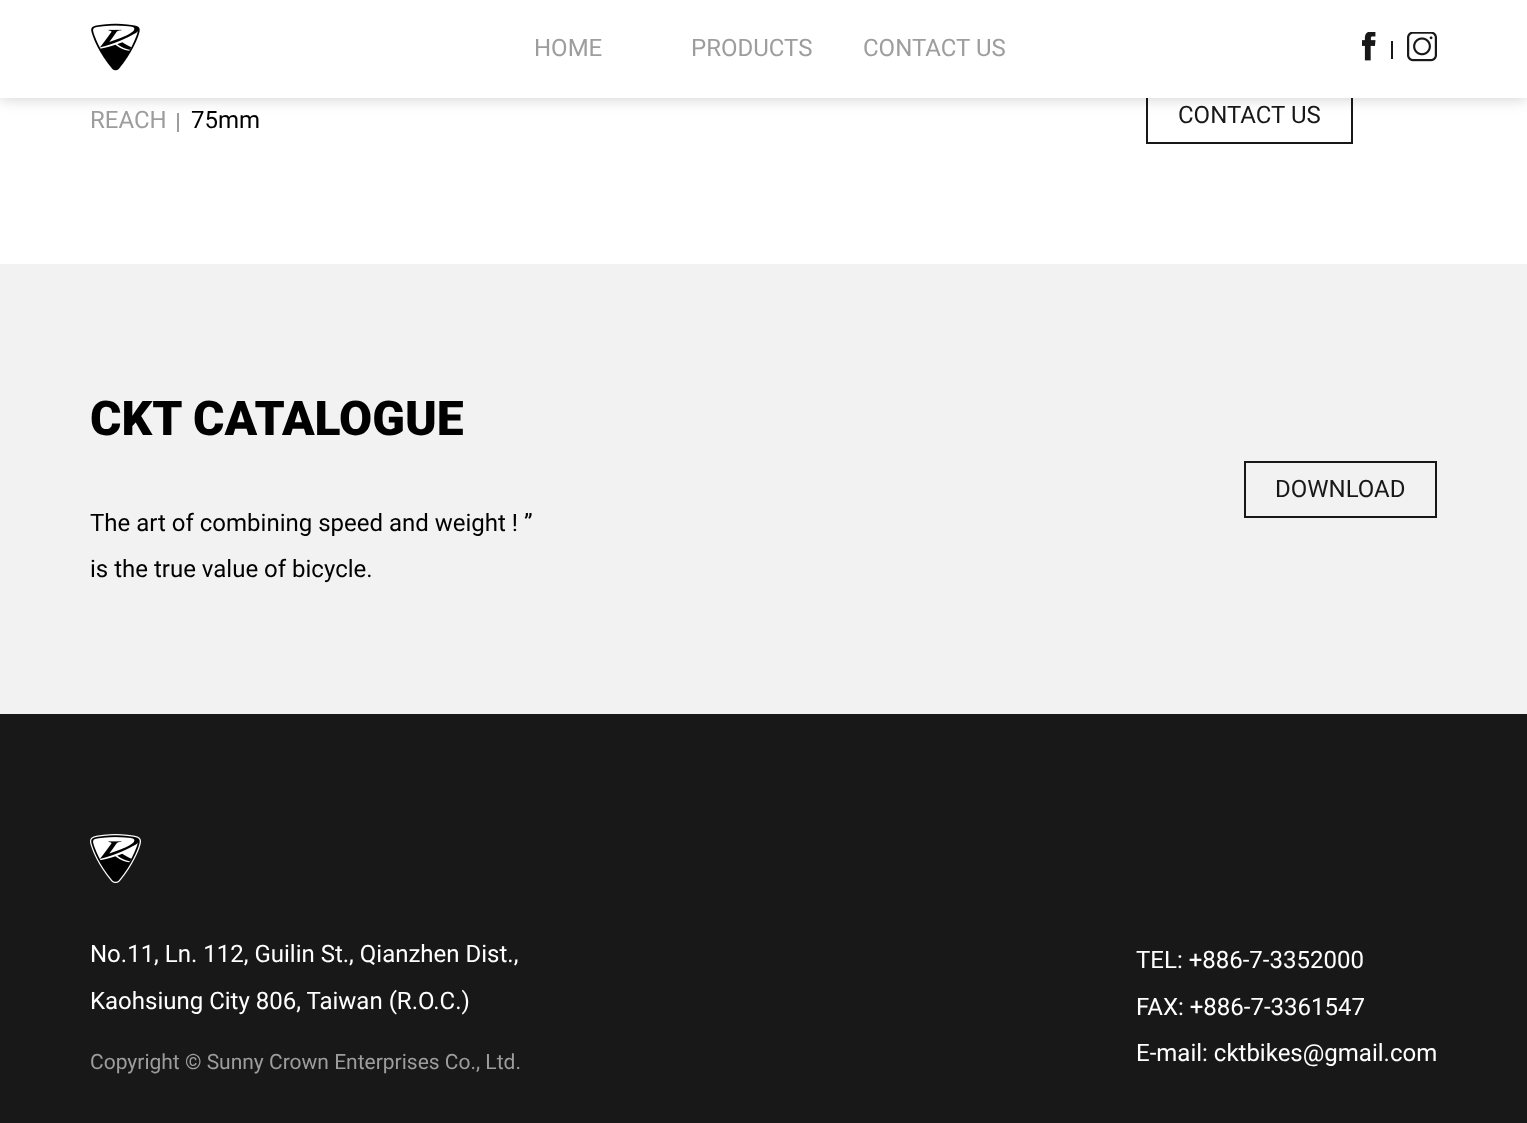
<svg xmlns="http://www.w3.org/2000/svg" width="1527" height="1123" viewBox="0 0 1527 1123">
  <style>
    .t1 { font: 24px Roboto; fill: #9d9d9d; }
    .t2 { font: 24px Roboto; fill: #000; }
    .t3 { font: 24px Roboto; fill: #181818; }
    .t4 { font: 900 48px Roboto; fill: #000; }
    .t5 { font: 24px Roboto; fill: #fff; }
    .t6 { font: 21px Roboto; fill: #9d9d9d; }
  </style>
  <rect width="100%" height="100%" fill="#fff"/>
  <rect x="177" y="113" width="2" height="19" fill="#9d9d9d"/>
  <rect x="1147" y="88" width="205" height="55" fill="none" stroke="#181818" stroke-width="2"/>
  <rect x="0" y="0" width="1527" height="98" fill="#00000033" filter="blur(7.5px)"/>
  <rect x="0" y="0" width="1527" height="98" fill="#fff"/>
  <image x="91" y="23" width="49" height="48" href="images/1.png"/>
  <text x="534" y="56" class="t1">HOME</text>
  <text x="691" y="56" class="t1">PRODUCTS</text>
  <text x="863" y="56" class="t1">CONTACT US</text>
  <image x="1362" y="32" width="14" height="29" href="images/2.png"/>
  <rect x="1391" y="41" width="2" height="18" fill="#181818"/>
  <image x="1407" y="32" width="30" height="30" href="images/3.png"/>
  <text x="90" y="128" class="t1">REACH</text>
  <text x="191" y="128" class="t2">75mm</text>
  <text x="1178" y="123" class="t3">CONTACT US</text>
  <rect x="0" y="264" width="1527" height="450" fill="#f2f2f2"/>
  <text x="90" y="435" class="t4">CKT CATALOGUE</text>
  <text x="90" y="531" class="t2">The art of combining speed and weight ! ”</text>
  <text x="90" y="577" class="t2">is the true value of bicycle.</text>
  <rect x="1245" y="462" width="191" height="55" fill="none" stroke="#181818" stroke-width="2"/>
  <text x="1275" y="497" class="t3">DOWNLOAD</text>
  <rect x="0" y="714" width="1527" height="409" fill="#181818"/>
  <image x="90" y="834" width="51" height="49" href="images/4.png"/>
  <text x="90" y="962" class="t5">No.11, Ln. 112, Guilin St., Qianzhen Dist.,</text>
  <text x="90" y="1009" class="t5">Kaohsiung City 806, Taiwan (R.O.C.)</text>
  <text x="90" y="1069" class="t6">Copyright © Sunny Crown Enterprises Co., Ltd.</text>
  <text x="1136" y="968" class="t5">TEL: +886-7-3352000</text>
  <text x="1136" y="1015" class="t5">FAX: +886-7-3361547</text>
  <text x="1136" y="1061" class="t5">E-mail: cktbikes@gmail.com</text>
</svg>
